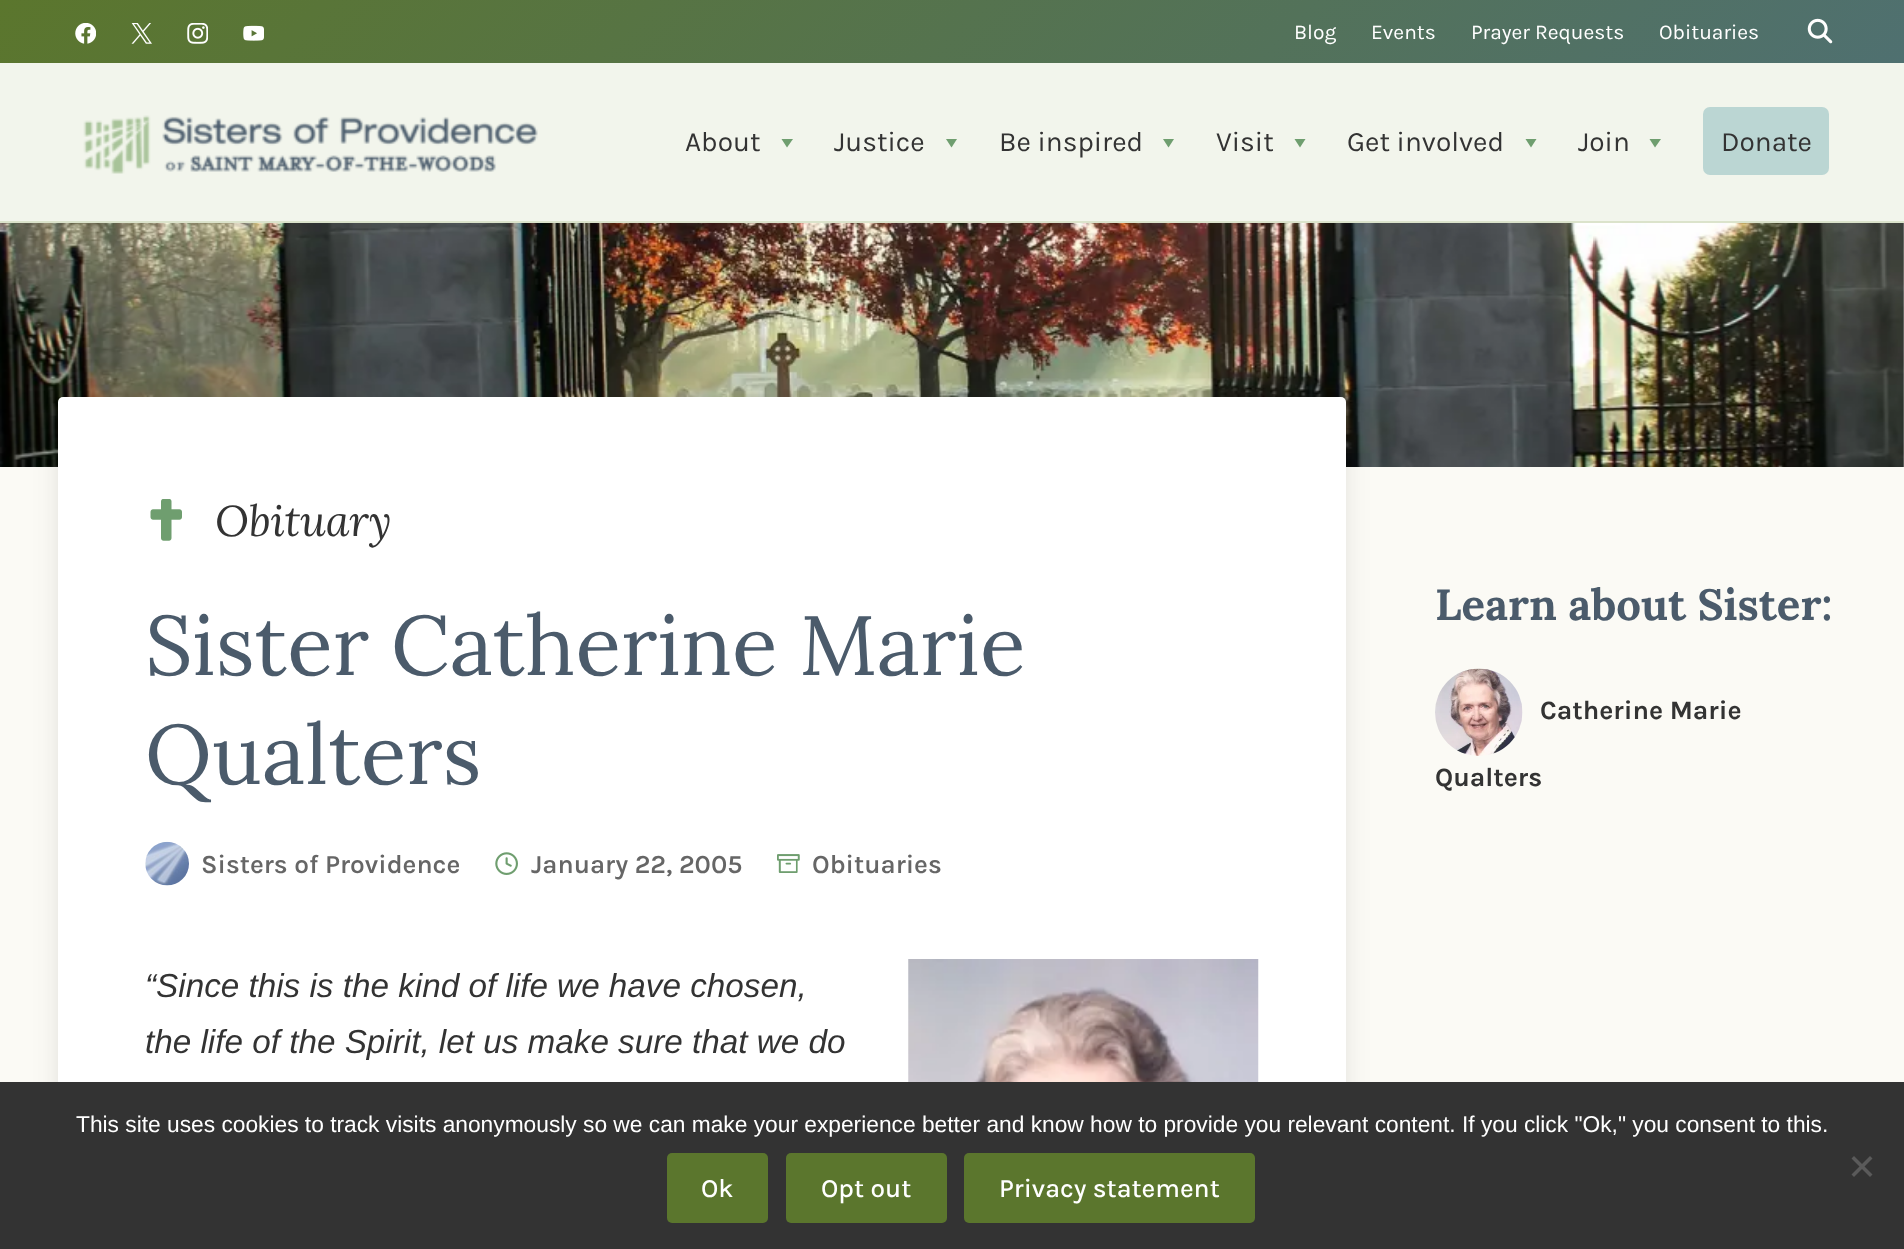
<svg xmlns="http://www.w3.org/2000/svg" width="1904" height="1249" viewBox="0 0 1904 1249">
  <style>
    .t1 { font: 21px Karla; fill: #fff; }
    .t2 { font: 28px Karla; fill: #333; }
    .t3 { font: italic 43px Lora; fill: #333; }
    .t4 { font: 84px Lora; fill: #4b5b6b; }
    .t5 { font: 600 26.25px Karla; fill: #666; }
    .t6 { font: italic 33.25px Liberation Sans; fill: #333; }
    .t7 { font: bold 43.75px Lora; fill: #4b5b6b; }
    .t8 { font: bold 26.5px Karla; fill: #333; }
    .t9 { font: 22.75px Liberation Sans; fill: #fff; }
    .t10 { font: 500 26.25px Karla; fill: #fff; }
  </style>
  <defs>
    <linearGradient id="g1" gradientUnits="userSpaceOnUse" x1="460" y1="-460" x2="1444" y2="523"><stop offset="0" stop-color="#5b762d"/><stop offset="1" stop-color="#4f7070"/></linearGradient>
  </defs>
  <rect width="100%" height="100%" fill="#fbfaf5"/>
  <rect x="0" y="0" width="1904" height="63" fill="url(#g1)"/>
  <image x="75" y="23" width="21" height="21" href="images/1.png"/>
  <image x="131" y="23" width="21" height="21" href="images/2.png"/>
  <image x="187" y="23" width="21" height="21" href="images/3.png"/>
  <image x="243" y="25" width="21" height="16" href="images/4.png"/>
  <text x="1294" y="39" class="t1">Blog</text>
  <text x="1371" y="39" class="t1">Events</text>
  <text x="1471" y="39" class="t1">Prayer Requests</text>
  <text x="1659" y="39" class="t1">Obituaries</text>
  <image x="1807" y="18" width="26" height="26" href="images/5.png"/>
  <rect x="0" y="63" width="1904" height="158" fill="#f2f5ec"/>
  <rect x="0" y="221" width="1904" height="2" fill="#dbe3cb"/>
  <image x="83" y="115" width="455" height="59" href="images/6.png"/>
  <text x="685" y="151" class="t2">About</text>
  <path d="M793 139L787 147.5L781.5 139Z" fill="#6f9e6f"/>
  <text x="834" y="151" class="t2">Justice</text>
  <path d="M957 139L951.5 147.5L946 139Z" fill="#6f9e6f"/>
  <text x="999" y="151" class="t2">Be inspired</text>
  <path d="M1174 139L1168.5 147.5L1163 139Z" fill="#6f9e6f"/>
  <text x="1216" y="151" class="t2">Visit</text>
  <path d="M1305.5 139L1300 147.5L1294.5 139Z" fill="#6f9e6f"/>
  <text x="1347" y="151" class="t2">Get involved</text>
  <path d="M1536.5 139L1531 147.5L1525.5 139Z" fill="#6f9e6f"/>
  <text x="1578" y="151" class="t2">Join</text>
  <path d="M1661 139L1655 147.5L1649.5 139Z" fill="#6f9e6f"/>
  <rect x="1703" y="107" width="126" height="68" rx="7" fill="#bbd6d3"/>
  <text x="1721" y="151" class="t2">Donate</text>
  <image x="0" y="223" width="1904" height="244" href="images/7.png"/>
  <rect x="68" y="429" width="1267" height="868" fill="#33333340" filter="blur(16px)"/>
  <rect x="58" y="397" width="1288" height="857" rx="5" fill="#fff"/>
  <image x="150" y="499" width="32" height="42" href="images/8.png"/>
  <text x="215" y="536" class="t3">Obituary</text>
  <text x="145" y="675" class="t4">Sister Catherine Marie</text>
  <text x="145" y="784" class="t4">Qualters</text>
  <image x="145" y="841" width="44" height="45" href="images/9.png"/>
  <text x="201" y="873" class="t5">Sisters of Providence</text>
  <image x="495" y="852" width="23" height="23" href="images/10.png"/>
  <text x="531" y="873" class="t5">January 22, 2005</text>
  <image x="777" y="854" width="23" height="19" href="images/11.png"/>
  <text x="812" y="873" class="t5">Obituaries</text>
  <text x="145" y="997" class="t6">“Since this is the kind of life we have chosen,</text>
  <text x="145" y="1053" class="t6">the life of the Spirit, let us make sure that we do</text>
  <image x="908" y="959" width="351" height="123" href="images/12.png"/>
  <text x="1435" y="620" class="t7">Learn about Sister:</text>
  <image x="1435" y="668" width="88" height="88" href="images/13.png"/>
  <text x="1540" y="719" class="t8">Catherine Marie</text>
  <text x="1435" y="786" class="t8">Qualters</text>
  <rect x="0" y="1082" width="1904" height="167" fill="#333"/>
  <text x="76" y="1132" class="t9">This site uses cookies to track visits anonymously so we can make your experience better and know how to provide you relevant content. If you click "Ok," you consent to this.</text>
  <path d="M1870 1156L1872.5 1158.5L1854 1177L1851.5 1174.5Z" fill="#5a5a5a"/>
  <path d="M1851.5 1158.5L1854 1156L1872.5 1174.5L1870 1177Z" fill="#5a5a5a"/>
  <rect x="667" y="1153" width="101" height="70" rx="5" fill="#5b762d"/>
  <text x="701" y="1197" class="t10">Ok</text>
  <rect x="786" y="1153" width="161" height="70" rx="5" fill="#5b762d"/>
  <text x="821" y="1197" class="t10">Opt out</text>
  <rect x="964" y="1153" width="291" height="70" rx="5" fill="#5b762d"/>
  <text x="999" y="1197" class="t10">Privacy statement</text>
</svg>
